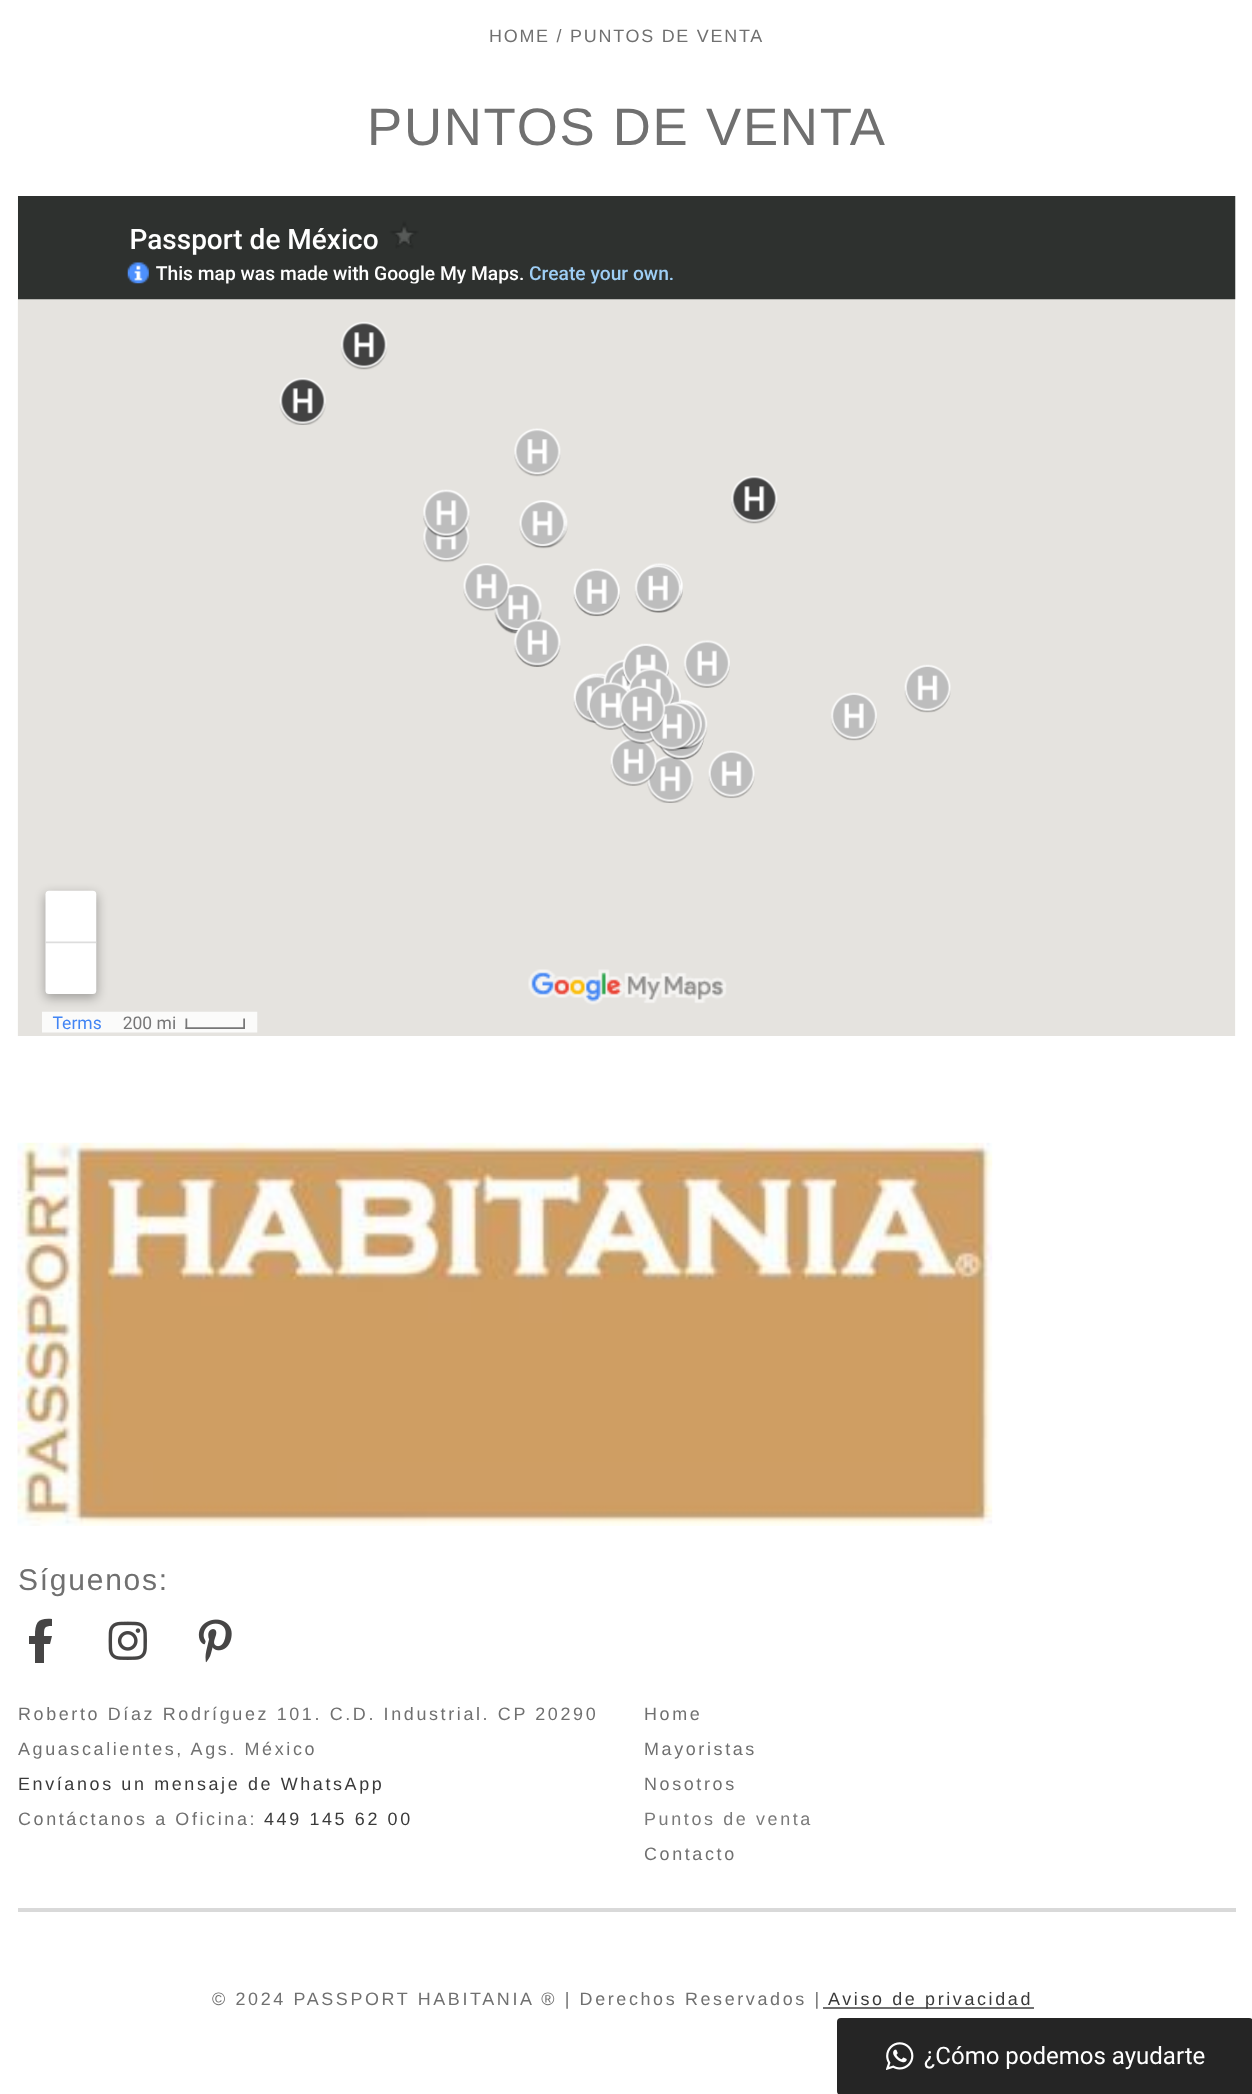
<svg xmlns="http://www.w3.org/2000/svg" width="1252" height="2094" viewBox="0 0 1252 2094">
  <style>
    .t1 { font: 17.95px Liberation Sans; letter-spacing: 1.75px; fill: #707070; }
    .t2 { font: 52.75px Liberation Sans; letter-spacing: 1.75px; fill: #707070; }
    .t3 { font: 30px Liberation Sans; letter-spacing: 1.75px; fill: #707070; }
    .t4 { font: 17.95px Liberation Sans; letter-spacing: 2.62px; fill: #707070; }
    .t5 { font: 17.95px Liberation Sans; letter-spacing: 2.62px; fill: #3a3a3a; }
    .t6 { font: 17.95px Liberation Sans; letter-spacing: 2.62px; fill: #7a7a7a; }
    .t7 { font: 24px Roboto; fill: #fff; }
  </style>
  <rect width="100%" height="100%" fill="#fff"/>
  <text x="489" y="42" class="t1">HOME / PUNTOS DE VENTA</text>
  <text x="367" y="145" class="t2">PUNTOS DE VENTA</text>
  <image x="17" y="196" width="1219" height="840" href="images/1.png"/>
  <image x="17" y="1142" width="976" height="384" href="images/2.png"/>
  <text x="18" y="1590" class="t3">Síguenos:</text>
  <path d="M50 1644H44V1663H35V1644H29V1636H35C35 1622 38 1618 52 1619V1626C44 1626 44 1628 44 1636H52Z" fill="#464545"/>
  <image x="108" y="1621" width="39" height="39" href="images/3.png"/>
  <image x="198" y="1619" width="34" height="44" href="images/4.png"/>
  <text x="18" y="1720" class="t4">Roberto Díaz Rodríguez 101. C.D. Industrial. CP 20290</text>
  <text x="18" y="1755" class="t4">Aguascalientes, Ags. México</text>
  <text x="18" y="1790" class="t5">Envíanos un mensaje de WhatsApp</text>
  <text x="18" y="1825" class="t4">Contáctanos a Oficina:</text>
  <text x="264" y="1825" class="t5">449 145 62 00</text>
  <text x="644" y="1720" class="t4">Home</text>
  <text x="644" y="1755" class="t4">Mayoristas</text>
  <text x="644" y="1790" class="t4">Nosotros</text>
  <text x="644" y="1825" class="t6">Puntos de venta</text>
  <text x="644" y="1860" class="t4">Contacto</text>
  <rect x="18" y="1908" width="1218" height="4" fill="#d9d9d9"/>
  <text x="212" y="2005" class="t4">© 2024 PASSPORT HABITANIA ® | Derechos Reservados |</text>
  <rect x="823" y="2007" width="211" height="2" fill="#707070"/>
  <text x="828" y="2005" class="t5">Aviso de privacidad</text>
  <rect x="837" y="2018" width="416" height="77" rx="4" fill="#252525"/>
  <image x="886" y="2042" width="28" height="28" href="images/5.png"/>
  <text x="924" y="2064" class="t7">¿Cómo podemos ayudarte</text>
</svg>
